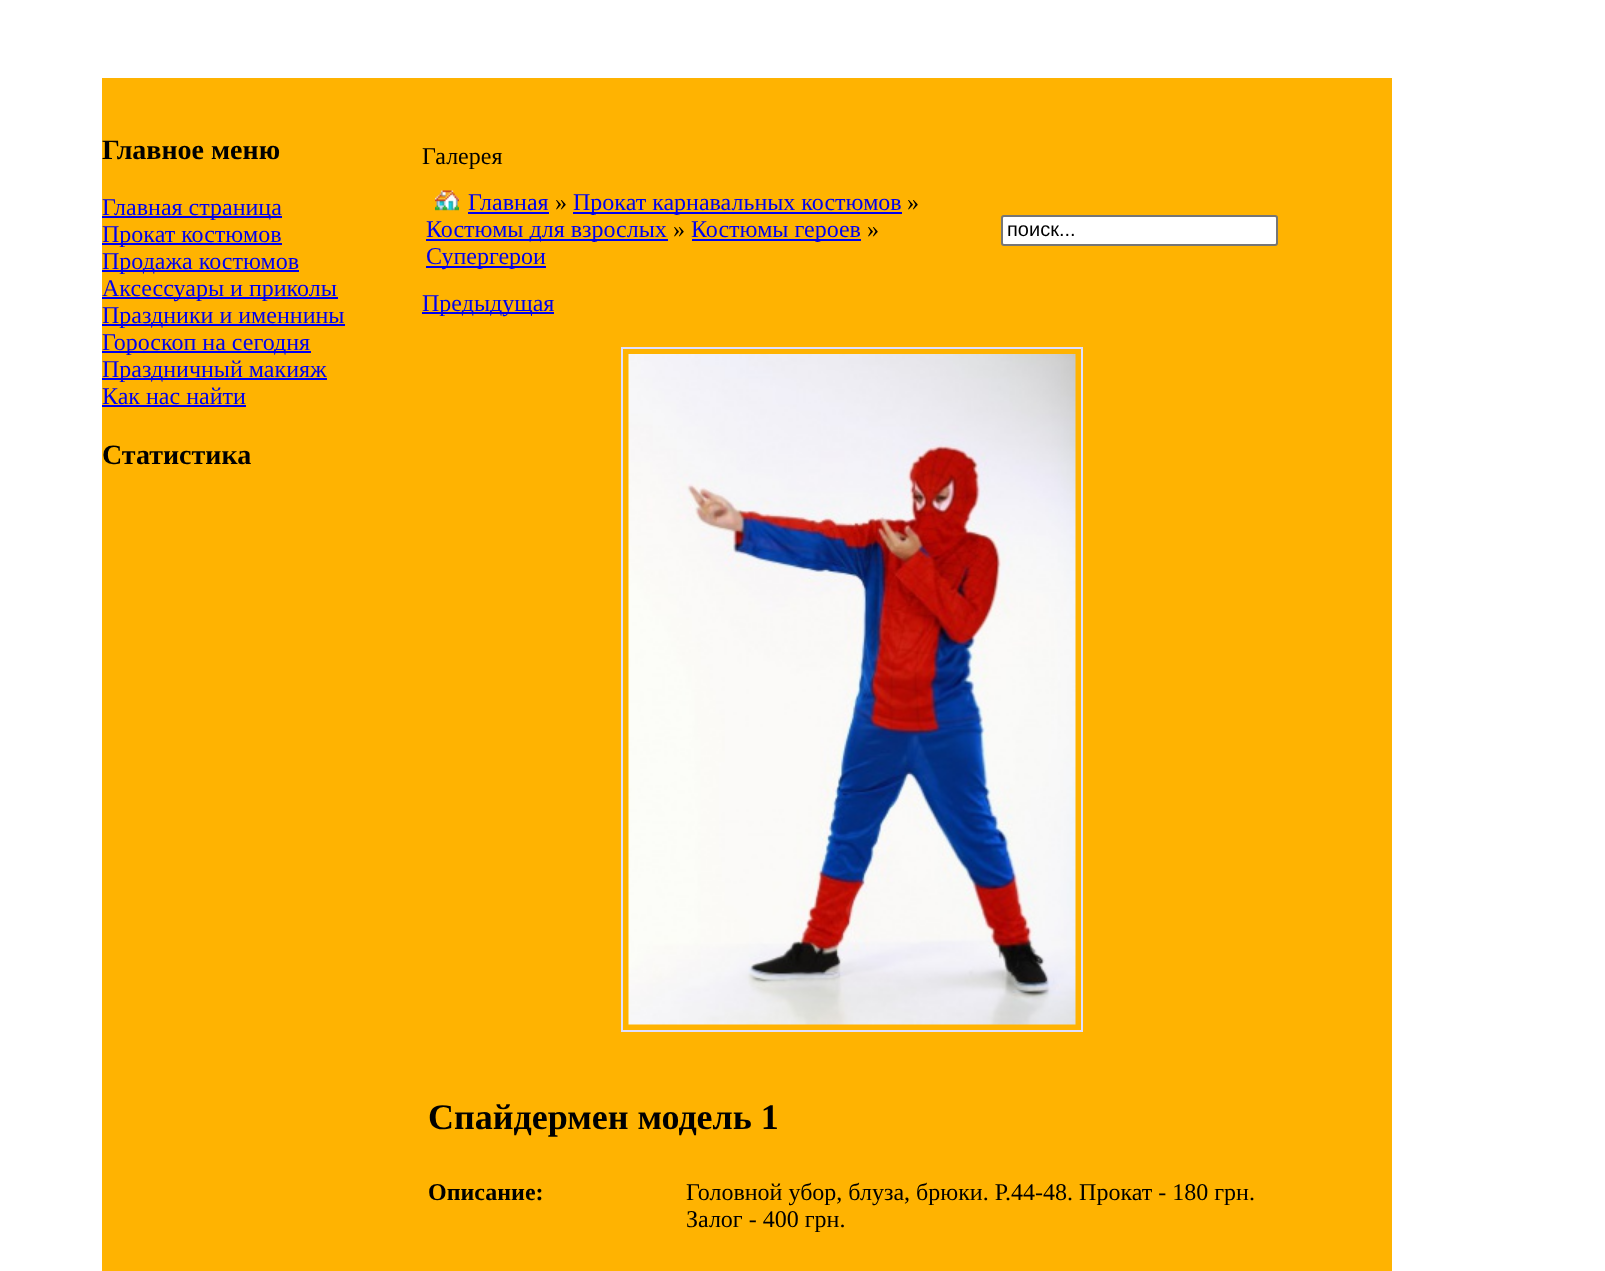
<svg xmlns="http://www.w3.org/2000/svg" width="1605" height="1271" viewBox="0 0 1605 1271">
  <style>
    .t1 { font: bold 28px Liberation Serif; fill: #000; }
    .t2 { font: 24px Liberation Serif; fill: #00e; }
    .t3 { font: 24px Liberation Serif; fill: #000; }
    .t4 { font: 20px Liberation Sans; fill: #000; }
    .t5 { font: bold 36px Liberation Serif; fill: #000; }
    .t6 { font: bold 24px Liberation Serif; fill: #000; }
  </style>
  <rect width="100%" height="100%" fill="#fff"/>
  <rect x="102" y="78" width="1290" height="1193" fill="#ffb301"/>
  <text x="102" y="159" class="t1">Главное меню</text>
  <rect x="102" y="216" width="180" height="2" fill="#00e"/>
  <text x="102" y="215" class="t2">Главная страница</text>
  <rect x="102" y="243" width="180" height="2" fill="#00e"/>
  <text x="102" y="242" class="t2">Прокат костюмов</text>
  <rect x="102" y="270" width="197" height="2" fill="#00e"/>
  <text x="102" y="269" class="t2">Продажа костюмов</text>
  <rect x="102" y="297" width="236" height="2" fill="#00e"/>
  <text x="102" y="296" class="t2">Аксессуары и приколы</text>
  <rect x="102" y="324" width="243" height="2" fill="#00e"/>
  <text x="102" y="323" class="t2">Праздники и именнины</text>
  <rect x="102" y="351" width="209" height="2" fill="#00e"/>
  <text x="102" y="350" class="t2">Гороскоп на сегодня</text>
  <rect x="102" y="378" width="225" height="2" fill="#00e"/>
  <text x="102" y="377" class="t2">Праздничный макияж</text>
  <text x="102" y="404" class="t2">Как нас найти</text>
  <rect x="102" y="405" width="144" height="2" fill="#00e"/>
  <text x="102" y="464" class="t1">Статистика</text>
  <text x="422" y="164" class="t3">Галерея</text>
  <image x="435" y="190" width="24" height="21" href="images/1.png"/>
  <text x="468" y="210" class="t2">Главная</text>
  <rect x="468" y="212" width="81" height="2" fill="#00e"/>
  <text x="555" y="210" class="t3">»</text>
  <rect x="573" y="212" width="329" height="2" fill="#00e"/>
  <text x="573" y="210" class="t2">Прокат карнавальных костюмов</text>
  <text x="907" y="210" class="t3">»</text>
  <rect x="426" y="239" width="242" height="2" fill="#00e"/>
  <text x="426" y="237" class="t2">Костюмы для взрослых</text>
  <text x="673" y="237" class="t3">»</text>
  <rect x="692" y="239" width="169" height="2" fill="#00e"/>
  <text x="691" y="237" class="t2">Костюмы героев</text>
  <text x="867" y="237" class="t3">»</text>
  <rect x="426" y="266" width="120" height="2" fill="#00e"/>
  <text x="426" y="264" class="t2">Супергерои</text>
  <rect x="1002" y="216" width="275" height="29" rx="2" fill="#fff" stroke="#767676" stroke-width="2"/>
  <text x="1007" y="236" class="t4">поиск...</text>
  <rect x="422" y="312" width="132" height="2" fill="#00e"/>
  <text x="422" y="311" class="t2">Предыдущая</text>
  <rect x="622" y="348" width="460" height="683" fill="none" stroke="#dfdfff" stroke-width="2"/>
  <image x="628" y="354" width="448" height="671" href="images/2.png"/>
  <text x="428" y="1129" class="t5">Спайдермен модель 1</text>
  <text x="428" y="1200" class="t6">Описание:</text>
  <text x="686" y="1200" class="t3">Головной убор, блуза, брюки. Р.44-48. Прокат - 180 грн.</text>
  <text x="686" y="1227" class="t3">Залог - 400 грн.</text>
</svg>
